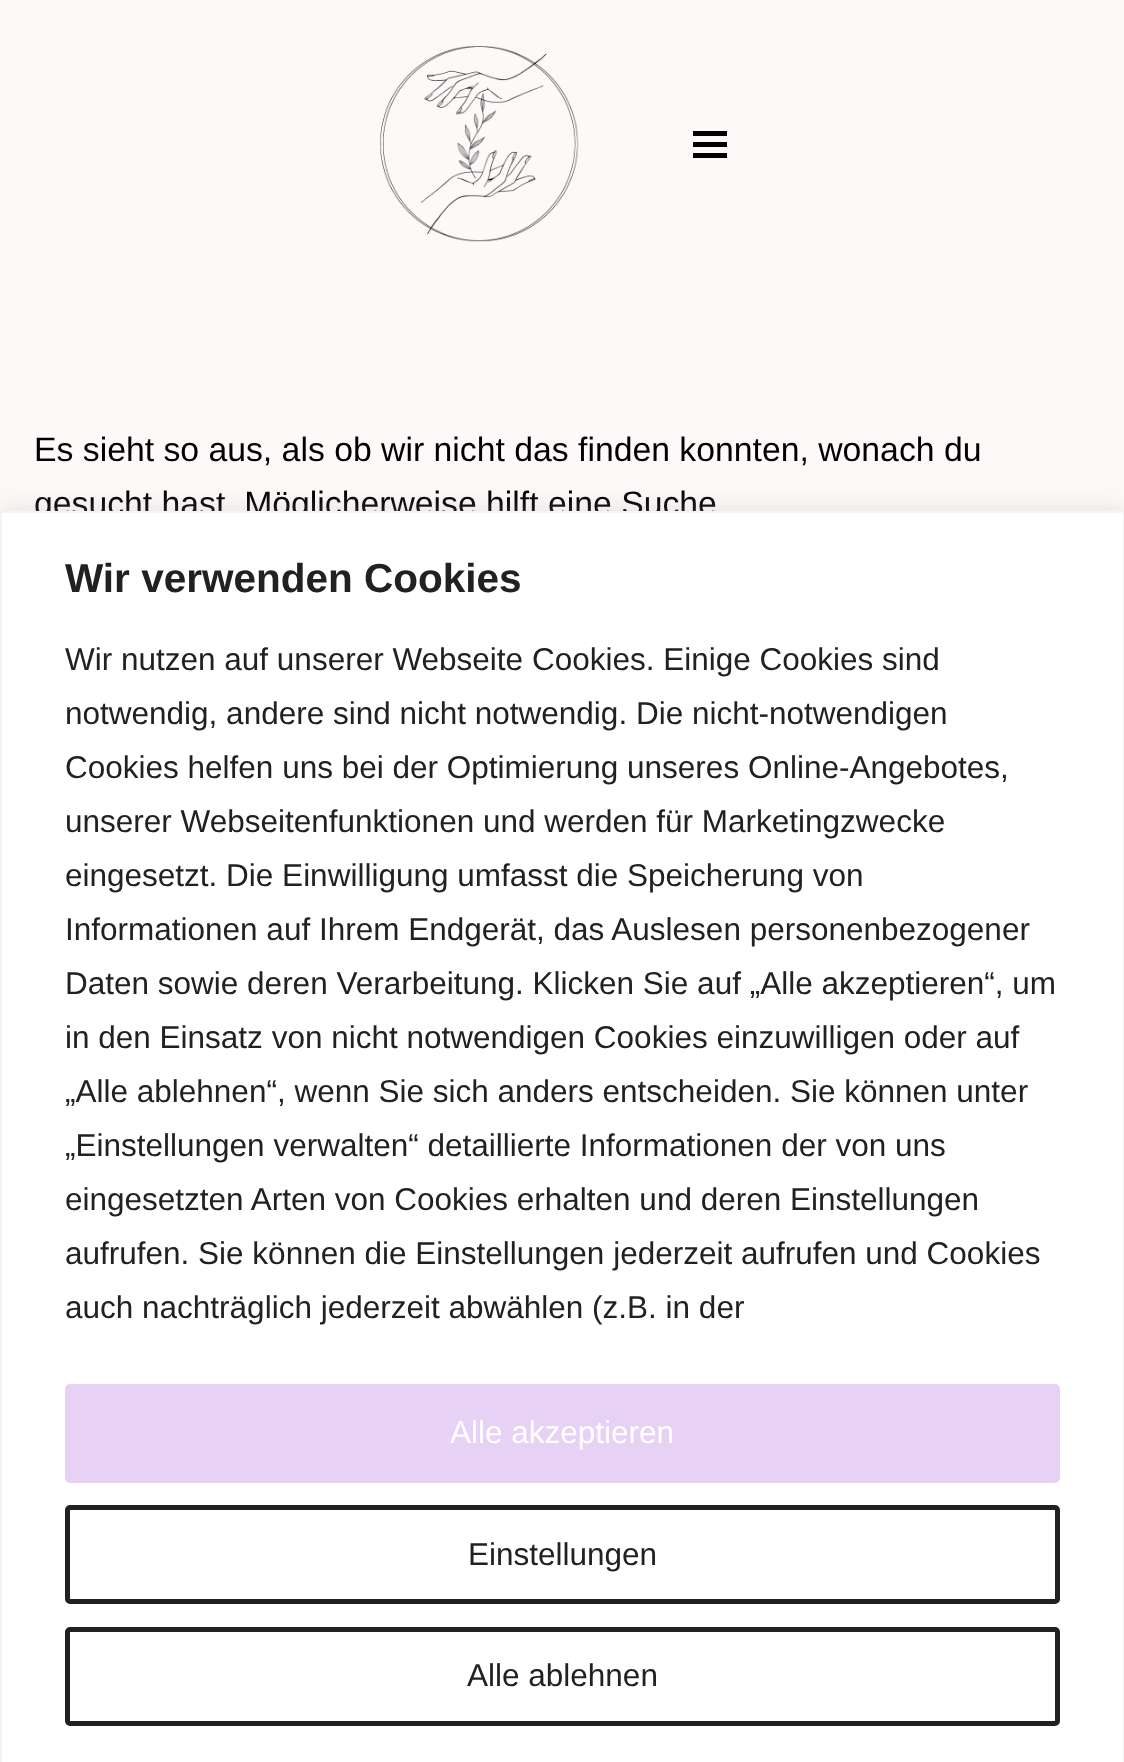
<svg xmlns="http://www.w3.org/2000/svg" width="1124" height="1762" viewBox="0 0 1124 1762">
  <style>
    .t1 { font: 33.75px Liberation Sans; fill: #000; }
    .t2 { font: bold 40.5px Liberation Sans; fill: #212121; }
    .t3 { font: 31.5px Liberation Sans; fill: #212121; }
    .t4 { font: 31.5px Liberation Sans; fill: #fff; }
  </style>
  <rect width="100%" height="100%" fill="#fdf9f9"/>
  <image x="380" y="46" width="199" height="196" href="images/1.png"/>
  <rect x="693" y="131" width="34" height="5" fill="#000"/>
  <rect x="693" y="142" width="34" height="5" fill="#000"/>
  <rect x="693" y="153" width="34" height="5" fill="#000"/>
  <text x="34" y="461" class="t1">Es sieht so aus, als ob wir nicht das finden konnten, wonach du</text>
  <text x="34" y="515" class="t1">gesucht hast. Möglicherweise hilft eine Suche</text>
  <rect x="0" y="509" width="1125" height="1253" fill="#acabab4d" filter="blur(11px)"/>
  <rect x="1" y="512" width="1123" height="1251" fill="#fff" stroke="#f4f4f4" stroke-width="2"/>
  <text x="65" y="592" class="t2">Wir verwenden Cookies</text>
  <text x="65" y="670" class="t3">Wir nutzen auf unserer Webseite Cookies. Einige Cookies sind</text>
  <text x="65" y="724" class="t3">notwendig, andere sind nicht notwendig. Die nicht-notwendigen</text>
  <text x="65" y="778" class="t3">Cookies helfen uns bei der Optimierung unseres Online-Angebotes,</text>
  <text x="65" y="832" class="t3">unserer Webseitenfunktionen und werden für Marketingzwecke</text>
  <text x="65" y="886" class="t3">eingesetzt. Die Einwilligung umfasst die Speicherung von</text>
  <text x="65" y="940" class="t3">Informationen auf Ihrem Endgerät, das Auslesen personenbezogener</text>
  <text x="65" y="994" class="t3">Daten sowie deren Verarbeitung. Klicken Sie auf „Alle akzeptieren“, um</text>
  <text x="65" y="1048" class="t3">in den Einsatz von nicht notwendigen Cookies einzuwilligen oder auf</text>
  <text x="65" y="1102" class="t3">„Alle ablehnen“, wenn Sie sich anders entscheiden. Sie können unter</text>
  <text x="65" y="1156" class="t3">„Einstellungen verwalten“ detaillierte Informationen der von uns</text>
  <text x="65" y="1210" class="t3">eingesetzten Arten von Cookies erhalten und deren Einstellungen</text>
  <text x="65" y="1264" class="t3">aufrufen. Sie können die Einstellungen jederzeit aufrufen und Cookies</text>
  <text x="65" y="1318" class="t3">auch nachträglich jederzeit abwählen (z.B. in der</text>
  <rect x="67.5" y="1386.5" width="990" height="94" rx="2.5" fill="#e7d2f6" stroke="#e7d2f6" stroke-width="5"/>
  <text x="450" y="1443" class="t4">Alle akzeptieren</text>
  <rect x="67.5" y="1507.5" width="990" height="94" rx="2.5" fill="none" stroke="#212121" stroke-width="5"/>
  <text x="468" y="1565" class="t3">Einstellungen</text>
  <rect x="67.5" y="1629.5" width="990" height="94" rx="2.5" fill="none" stroke="#212121" stroke-width="5"/>
  <text x="467" y="1686" class="t3">Alle ablehnen</text>
</svg>
